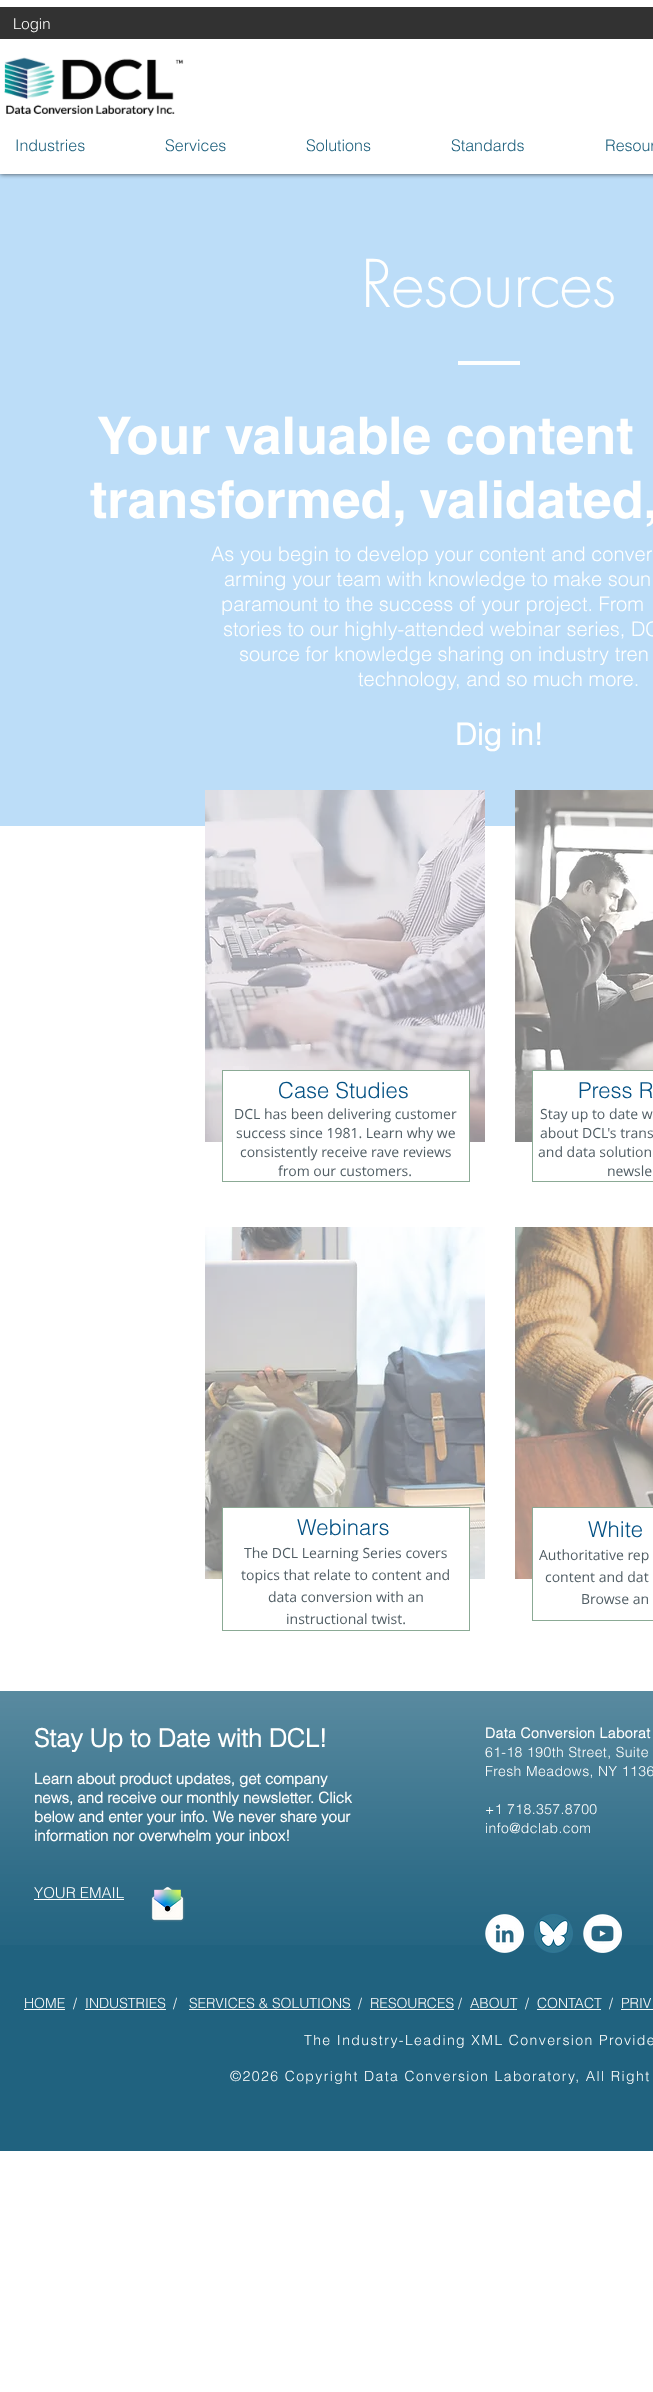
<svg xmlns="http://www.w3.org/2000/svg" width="653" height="2392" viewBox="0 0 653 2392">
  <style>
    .t1 { font: 300 15px helvetica; fill: #fffffe; }
    .t2 { font: 300 16px helvetica; fill: #20627f; }
    .t3 { font: 300 64px futura; fill: #fffffe; }
    .t4 { font: bold 52px helvetica; fill: #fffffe; }
    .t5 { font: 300 20px helvetica; fill: #fffffe; }
    .t6 { font: bold 30px 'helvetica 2'; fill: #fffffe; }
    .t7 { font: 300 22px helvetica; fill: #045184; }
    .t8 { font: 14px Open Sans; fill: #515e65; }
    .t9 { font: bold 25px 'helvetica 2'; fill: #fffffe; }
    .t10 { font: bold 14px 'helvetica 2'; letter-spacing: 0.4px; fill: #fffffe; }
    .t11 { font: 300 14px helvetica; letter-spacing: 0.4px; fill: #fffffe; }
    .t12 { font: bold 15px 'helvetica 2'; fill: #fffffe; }
    .t13 { font: 300 14px helvetica; fill: #f9f9f9; }
    .t14 { font: 300 14px helvetica; letter-spacing: 1.4px; fill: #fffffe; }
  </style>
  <rect width="100%" height="100%" fill="#fff"/>
  <rect x="0" y="174" width="653" height="652" fill="#bcddf8"/>
  <rect x="0" y="0" width="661" height="174" fill="#000000b3" filter="blur(2.5px)"/>
  <rect x="0" y="0" width="653" height="174" fill="#fff"/>
  <rect x="0" y="7" width="653" height="32" fill="#323232"/>
  <text x="13" y="29" class="t1">Login</text>
  <image x="4" y="57" width="180" height="60" href="images/1.png"/>
  <text x="15" y="151" class="t2">Industries</text>
  <text x="165" y="151" class="t2">Services</text>
  <text x="306" y="151" class="t2">Solutions</text>
  <text x="451" y="151" class="t2">Standards</text>
  <text x="605" y="151" class="t2">Resour</text>
  <text x="361" y="307" class="t3">Resources</text>
  <rect x="458" y="361" width="62" height="4" fill="#fffffe"/>
  <text x="97" y="454" class="t4">Your valuable content</text>
  <text x="90" y="518" class="t4">transformed, validated,</text>
  <text x="211" y="561" class="t5">As you begin to develop your content and conver</text>
  <text x="224" y="586" class="t5">arming your team with knowledge to make soun</text>
  <text x="221" y="611" class="t5">paramount to the success of your project. From</text>
  <text x="223" y="636" class="t5">stories to our highly-attended webinar series, DC</text>
  <text x="239" y="661" class="t5">source for knowledge sharing on industry tren</text>
  <text x="358" y="686" class="t5">technology, and so much more.</text>
  <text x="455" y="745" class="t6">Dig in!</text>
  <image x="205" y="790" width="280" height="352" href="images/2.png"/>
  <rect x="223" y="1071" width="246" height="71" fill="#fff"/>
  <rect x="222.5" y="1070.5" width="247" height="111" fill="none" stroke="#8baa95"/>
  <text x="278" y="1098" class="t7">Case Studies</text>
  <text x="234" y="1119" class="t8">DCL has been delivering customer</text>
  <text x="236" y="1138" class="t8">success since 1981. Learn why we</text>
  <text x="240" y="1157" class="t8">consistently receive rave reviews</text>
  <text x="278" y="1176" class="t8">from our customers.</text>
  <image x="205" y="1227" width="280" height="352" href="images/3.png"/>
  <rect x="223" y="1508" width="246" height="71" fill="#fff"/>
  <rect x="222.5" y="1507.5" width="247" height="123" fill="none" stroke="#8baa95"/>
  <text x="297" y="1535" class="t7">Webinars</text>
  <text x="244" y="1558" class="t8">The DCL Learning Series covers</text>
  <text x="241" y="1580" class="t8">topics that relate to content and</text>
  <text x="268" y="1602" class="t8">data conversion with an</text>
  <text x="286" y="1624" class="t8">instructional twist.</text>
  <image x="515" y="790" width="138" height="352" href="images/4.png"/>
  <rect x="533" y="1071" width="120" height="71" fill="#fff"/>
  <rect x="532.5" y="1070.5" width="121" height="111" fill="none" stroke="#8baa95"/>
  <text x="578" y="1098" class="t7">Press R</text>
  <text x="540" y="1119" class="t8">Stay up to date w</text>
  <text x="540" y="1138" class="t8">about DCL's trans</text>
  <text x="538" y="1157" class="t8">and data solution</text>
  <text x="607" y="1176" class="t8">newsle</text>
  <image x="515" y="1227" width="138" height="352" href="images/5.png"/>
  <rect x="533" y="1508" width="120" height="71" fill="#fff"/>
  <rect x="532.5" y="1507.5" width="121" height="113" fill="none" stroke="#8baa95"/>
  <text x="588" y="1537" class="t7">White</text>
  <text x="539" y="1560" class="t8">Authoritative rep</text>
  <text x="545" y="1582" class="t8">content and dat</text>
  <text x="581" y="1604" class="t8">Browse an</text>
  <rect x="0" y="1691" width="653" height="460" fill="#20627f"/>
  <image x="0" y="1691" width="653" height="254" href="images/6.png"/>
  <text x="34" y="1747" class="t9">Stay Up to Date with DCL!</text>
  <text x="485" y="1738" class="t10">Data Conversion Laborat</text>
  <text x="485" y="1757" class="t11">61-18 190th Street, Suite</text>
  <text x="485" y="1776" class="t11">Fresh Meadows, NY 1136</text>
  <text x="485" y="1814" class="t11">+1 718.357.8700</text>
  <text x="485" y="1833" class="t11">info@dclab.com</text>
  <text x="34" y="1784" class="t12">Learn about product updates, get company</text>
  <text x="34" y="1803" class="t12">news, and receive our monthly newsletter. Click</text>
  <text x="34" y="1822" class="t12">below and enter your info. We never share your</text>
  <text x="34" y="1841" class="t12">information nor overwhelm your inbox!</text>
  <text x="34" y="1898" class="t1">YOUR EMAIL</text>
  <rect x="34" y="1899" width="90" height="1" fill="#fff"/>
  <image x="150" y="1886" width="35" height="36" href="images/7.png"/>
  <image x="485" y="1914" width="39" height="39" href="images/8.png"/>
  <image x="534" y="1914" width="39" height="39" href="images/9.png"/>
  <image x="583" y="1914" width="39" height="39" href="images/10.png"/>
  <text x="24" y="2008" class="t13">HOME</text>
  <rect x="24" y="2009" width="41" height="1" fill="#f9f9f9"/>
  <text x="73" y="2008" class="t13">/</text>
  <text x="85" y="2008" class="t13">INDUSTRIES</text>
  <rect x="85" y="2009" width="81" height="1" fill="#f9f9f9"/>
  <text x="173" y="2008" class="t13">/</text>
  <text x="189" y="2008" class="t13">SERVICES &amp; SOLUTIONS</text>
  <rect x="189" y="2009" width="162" height="1" fill="#f9f9f9"/>
  <text x="358" y="2008" class="t13">/</text>
  <rect x="370" y="2009" width="84" height="1" fill="#f9f9f9"/>
  <text x="370" y="2008" class="t13">RESOURCES /</text>
  <text x="470" y="2008" class="t13">ABOUT</text>
  <rect x="470" y="2009" width="47" height="1" fill="#f9f9f9"/>
  <text x="525" y="2008" class="t13">/</text>
  <text x="537" y="2008" class="t13">CONTACT</text>
  <rect x="537" y="2009" width="64" height="1" fill="#f9f9f9"/>
  <text x="609" y="2008" class="t13">/</text>
  <text x="621" y="2008" class="t13">PRIV</text>
  <rect x="621" y="2009" width="32" height="1" fill="#f9f9f9"/>
  <text x="304" y="2045" class="t14">The Industry-Leading XML Conversion Provide</text>
  <text x="230" y="2081" class="t14">©2026 Copyright Data Conversion Laboratory, All Right</text>
</svg>
